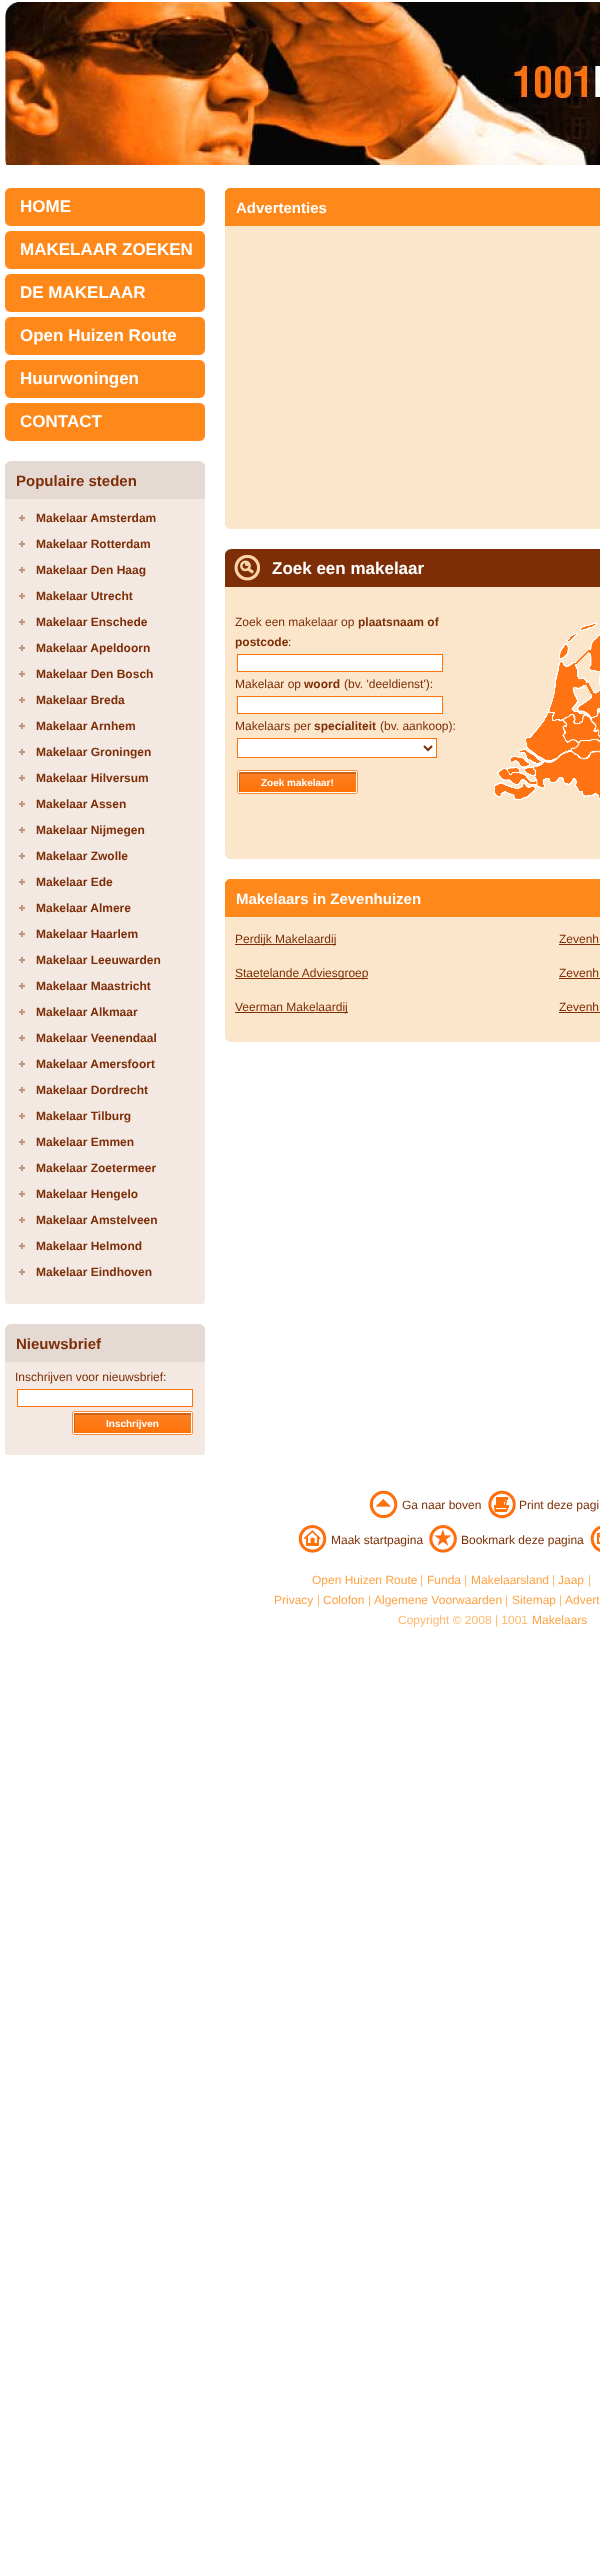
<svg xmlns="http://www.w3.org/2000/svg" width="600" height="2576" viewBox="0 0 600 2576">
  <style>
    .t1 { font: bold 17px Liberation Sans; fill: #fff; }
    .t2 { font: bold 15px Liberation Sans; fill: #7d2e06; }
    .t3 { font: bold 12px Liberation Sans; fill: #7d2e06; }
    .t4 { font: 12px Liberation Sans; fill: #7d2e06; }
    .t5 { font: bold 10px Liberation Sans; fill: #fff; }
    .t6 { font: bold 15px Liberation Sans; fill: #fff; }
    .t7 { font: 12px Liberation Sans; fill: #ffa244; }
    .t8 { font: 12px Liberation Sans; fill: #ffb86e; }
  </style>
  <rect width="100%" height="100%" fill="#fff"/>
  <image x="5" y="2" width="595" height="163" href="images/1.png"/>
  <image x="5" y="188" width="200" height="38" href="images/2.png"/>
  <text x="20" y="212" class="t1">HOME</text>
  <image x="5" y="231" width="200" height="38" href="images/2.png"/>
  <text x="20" y="255" class="t1">MAKELAAR ZOEKEN</text>
  <image x="5" y="274" width="200" height="38" href="images/2.png"/>
  <text x="20" y="298" class="t1">DE MAKELAAR</text>
  <image x="5" y="317" width="200" height="38" href="images/2.png"/>
  <text x="20" y="341" class="t1">Open Huizen Route</text>
  <image x="5" y="360" width="200" height="38" href="images/2.png"/>
  <text x="20" y="384" class="t1">Huurwoningen</text>
  <image x="5" y="403" width="200" height="38" href="images/2.png"/>
  <text x="20" y="427" class="t1">CONTACT</text>
  <rect x="5" y="499" width="200" height="805" fill="#f3e8e2"/>
  <rect x="5" y="461" width="200" height="38" fill="#e5d9d3"/>
  <image x="5" y="461" width="6" height="4" href="images/3.png"/>
  <image x="199" y="461" width="6" height="4" href="images/4.png"/>
  <text x="16" y="486" class="t2">Populaire steden</text>
  <image x="19" y="515" width="6" height="6" href="images/5.png"/>
  <text x="36" y="522" class="t3">Makelaar Amsterdam</text>
  <image x="19" y="541" width="6" height="6" href="images/5.png"/>
  <text x="36" y="548" class="t3">Makelaar Rotterdam</text>
  <image x="19" y="567" width="6" height="6" href="images/5.png"/>
  <text x="36" y="574" class="t3">Makelaar Den Haag</text>
  <image x="19" y="593" width="6" height="6" href="images/5.png"/>
  <text x="36" y="600" class="t3">Makelaar Utrecht</text>
  <image x="19" y="619" width="6" height="6" href="images/5.png"/>
  <text x="36" y="626" class="t3">Makelaar Enschede</text>
  <image x="19" y="645" width="6" height="6" href="images/5.png"/>
  <text x="36" y="652" class="t3">Makelaar Apeldoorn</text>
  <image x="19" y="671" width="6" height="6" href="images/5.png"/>
  <text x="36" y="678" class="t3">Makelaar Den Bosch</text>
  <image x="19" y="697" width="6" height="6" href="images/5.png"/>
  <text x="36" y="704" class="t3">Makelaar Breda</text>
  <image x="19" y="723" width="6" height="6" href="images/5.png"/>
  <text x="36" y="730" class="t3">Makelaar Arnhem</text>
  <image x="19" y="749" width="6" height="6" href="images/5.png"/>
  <text x="36" y="756" class="t3">Makelaar Groningen</text>
  <image x="19" y="775" width="6" height="6" href="images/5.png"/>
  <text x="36" y="782" class="t3">Makelaar Hilversum</text>
  <image x="19" y="801" width="6" height="6" href="images/5.png"/>
  <text x="36" y="808" class="t3">Makelaar Assen</text>
  <image x="19" y="827" width="6" height="6" href="images/5.png"/>
  <text x="36" y="834" class="t3">Makelaar Nijmegen</text>
  <image x="19" y="853" width="6" height="6" href="images/5.png"/>
  <text x="36" y="860" class="t3">Makelaar Zwolle</text>
  <image x="19" y="879" width="6" height="6" href="images/5.png"/>
  <text x="36" y="886" class="t3">Makelaar Ede</text>
  <image x="19" y="905" width="6" height="6" href="images/5.png"/>
  <text x="36" y="912" class="t3">Makelaar Almere</text>
  <image x="19" y="931" width="6" height="6" href="images/5.png"/>
  <text x="36" y="938" class="t3">Makelaar Haarlem</text>
  <image x="19" y="957" width="6" height="6" href="images/5.png"/>
  <text x="36" y="964" class="t3">Makelaar Leeuwarden</text>
  <image x="19" y="983" width="6" height="6" href="images/5.png"/>
  <text x="36" y="990" class="t3">Makelaar Maastricht</text>
  <image x="19" y="1009" width="6" height="6" href="images/5.png"/>
  <text x="36" y="1016" class="t3">Makelaar Alkmaar</text>
  <image x="19" y="1035" width="6" height="6" href="images/5.png"/>
  <text x="36" y="1042" class="t3">Makelaar Veenendaal</text>
  <image x="19" y="1061" width="6" height="6" href="images/5.png"/>
  <text x="36" y="1068" class="t3">Makelaar Amersfoort</text>
  <image x="19" y="1087" width="6" height="6" href="images/5.png"/>
  <text x="36" y="1094" class="t3">Makelaar Dordrecht</text>
  <image x="19" y="1113" width="6" height="6" href="images/5.png"/>
  <text x="36" y="1120" class="t3">Makelaar Tilburg</text>
  <image x="19" y="1139" width="6" height="6" href="images/5.png"/>
  <text x="36" y="1146" class="t3">Makelaar Emmen</text>
  <image x="19" y="1165" width="6" height="6" href="images/5.png"/>
  <text x="36" y="1172" class="t3">Makelaar Zoetermeer</text>
  <image x="19" y="1191" width="6" height="6" href="images/5.png"/>
  <text x="36" y="1198" class="t3">Makelaar Hengelo</text>
  <image x="19" y="1217" width="6" height="6" href="images/5.png"/>
  <text x="36" y="1224" class="t3">Makelaar Amstelveen</text>
  <image x="19" y="1243" width="6" height="6" href="images/5.png"/>
  <text x="36" y="1250" class="t3">Makelaar Helmond</text>
  <image x="19" y="1269" width="6" height="6" href="images/5.png"/>
  <text x="36" y="1276" class="t3">Makelaar Eindhoven</text>
  <image x="5" y="1302" width="2" height="2" href="images/6.png"/>
  <image x="203" y="1302" width="2" height="2" href="images/7.png"/>
  <rect x="5" y="1362" width="200" height="93" fill="#f3e8e2"/>
  <rect x="5" y="1324" width="200" height="38" fill="#e5d9d3"/>
  <image x="5" y="1324" width="6" height="4" href="images/3.png"/>
  <image x="199" y="1324" width="6" height="4" href="images/4.png"/>
  <text x="16" y="1349" class="t2">Nieuwsbrief</text>
  <text x="15" y="1381" class="t4">Inschrijven voor nieuwsbrief:</text>
  <rect x="17.5" y="1389.5" width="175" height="17" fill="#fff" stroke="#ff7209"/>
  <image x="72" y="1411" width="121" height="24" href="images/8.png"/>
  <text x="106" y="1427" class="t5">Inschrijven</text>
  <image x="5" y="1453" width="2" height="2" href="images/6.png"/>
  <image x="203" y="1453" width="2" height="2" href="images/7.png"/>
  <rect x="225" y="226" width="375" height="303" fill="#fbe6cb"/>
  <rect x="225" y="188" width="375" height="38" fill="#ff881a"/>
  <image x="225" y="188" width="5" height="4" href="images/9.png"/>
  <text x="236" y="213" class="t6">Advertenties</text>
  <image x="225" y="524" width="5" height="5" href="images/10.png"/>
  <rect x="225" y="587" width="375" height="272" fill="#fbe6cb"/>
  <rect x="225" y="549" width="375" height="38" fill="#7d2e06"/>
  <image x="225" y="549" width="35" height="32" href="images/11.png"/>
  <text x="272" y="574" class="t1">Zoek een makelaar</text>
  <text x="235" y="626" class="t4">Zoek een makelaar op</text>
  <text x="358" y="626" class="t3">plaatsnaam of</text>
  <text x="235" y="646" class="t3">postcode</text>
  <text x="288" y="646" class="t4">:</text>
  <rect x="237.5" y="654.5" width="205" height="17" fill="#fff" stroke="#ff7209"/>
  <text x="235" y="688" class="t4">Makelaar op</text>
  <text x="304" y="688" class="t3">woord</text>
  <text x="344" y="688" class="t4">(bv. 'deeldienst'):</text>
  <rect x="237.5" y="696.5" width="205" height="17" fill="#fff" stroke="#ff7209"/>
  <text x="235" y="730" class="t4">Makelaars per</text>
  <text x="314" y="730" class="t3">specialiteit</text>
  <text x="380" y="730" class="t4">(bv. aankoop):</text>
  <rect x="237.5" y="738.5" width="199" height="19" fill="#fff" stroke="#ff7209"/>
  <path d="M424 746L428 750L432 746" fill="none" stroke="#7d2e06" stroke-width="2"/>
  <image x="237" y="770" width="121" height="24" href="images/8.png"/>
  <text x="261" y="786" class="t5">Zoek makelaar!</text>
  <image x="494" y="622" width="106" height="178" href="images/12.png"/>
  <image x="225" y="854" width="5" height="5" href="images/10.png"/>
  <rect x="225" y="917" width="375" height="125" fill="#fbe6cb"/>
  <rect x="225" y="879" width="375" height="38" fill="#ff881a"/>
  <image x="225" y="879" width="5" height="4" href="images/9.png"/>
  <text x="236" y="904" class="t6">Makelaars in Zevenhuizen</text>
  <rect x="235" y="944" width="101" height="1" fill="#7d2e06"/>
  <text x="235" y="943" class="t4">Perdijk Makelaardij</text>
  <text x="559" y="943" class="t4">Zevenh</text>
  <rect x="559" y="944" width="41" height="1" fill="#7d2e06"/>
  <rect x="235" y="978" width="133" height="1" fill="#7d2e06"/>
  <text x="235" y="977" class="t4">Staetelande Adviesgroep</text>
  <text x="559" y="977" class="t4">Zevenh</text>
  <rect x="559" y="978" width="41" height="1" fill="#7d2e06"/>
  <rect x="235" y="1012" width="113" height="1" fill="#7d2e06"/>
  <text x="235" y="1011" class="t4">Veerman Makelaardij</text>
  <text x="559" y="1011" class="t4">Zevenh</text>
  <rect x="559" y="1012" width="41" height="1" fill="#7d2e06"/>
  <image x="225" y="1037" width="5" height="5" href="images/10.png"/>
  <image x="369" y="1490" width="29" height="28" href="images/13.png"/>
  <text x="402" y="1509" class="t4">Ga naar boven</text>
  <image x="488" y="1490" width="28" height="29" href="images/14.png"/>
  <text x="519" y="1509" class="t4">Print deze pagi</text>
  <image x="298" y="1525" width="29" height="28" href="images/15.png"/>
  <text x="331" y="1544" class="t4">Maak startpagina</text>
  <image x="429" y="1525" width="28" height="28" href="images/16.png"/>
  <text x="461" y="1544" class="t4">Bookmark deze pagina</text>
  <image x="590" y="1526" width="10" height="26" href="images/17.png"/>
  <text x="312" y="1584" class="t7">Open Huizen Route</text>
  <text x="420" y="1584" class="t8">|</text>
  <text x="427" y="1584" class="t7">Funda</text>
  <text x="464" y="1584" class="t8">|</text>
  <text x="471" y="1584" class="t7">Makelaarsland</text>
  <text x="552" y="1584" class="t8">|</text>
  <text x="558" y="1584" class="t7">Jaap</text>
  <text x="588" y="1584" class="t8">|</text>
  <text x="274" y="1604" class="t7">Privacy</text>
  <text x="317" y="1604" class="t8">|</text>
  <text x="323" y="1604" class="t7">Colofon</text>
  <text x="368" y="1604" class="t8">|</text>
  <text x="374" y="1604" class="t7">Algemene Voorwaarden</text>
  <text x="505" y="1604" class="t8">|</text>
  <text x="512" y="1604" class="t7">Sitemap</text>
  <text x="559" y="1604" class="t8">|</text>
  <text x="565" y="1604" class="t7">Advert</text>
  <text x="398" y="1624" class="t8">Copyright © 2008 | 1001</text>
  <text x="532" y="1624" class="t7">Makelaars</text>
</svg>
